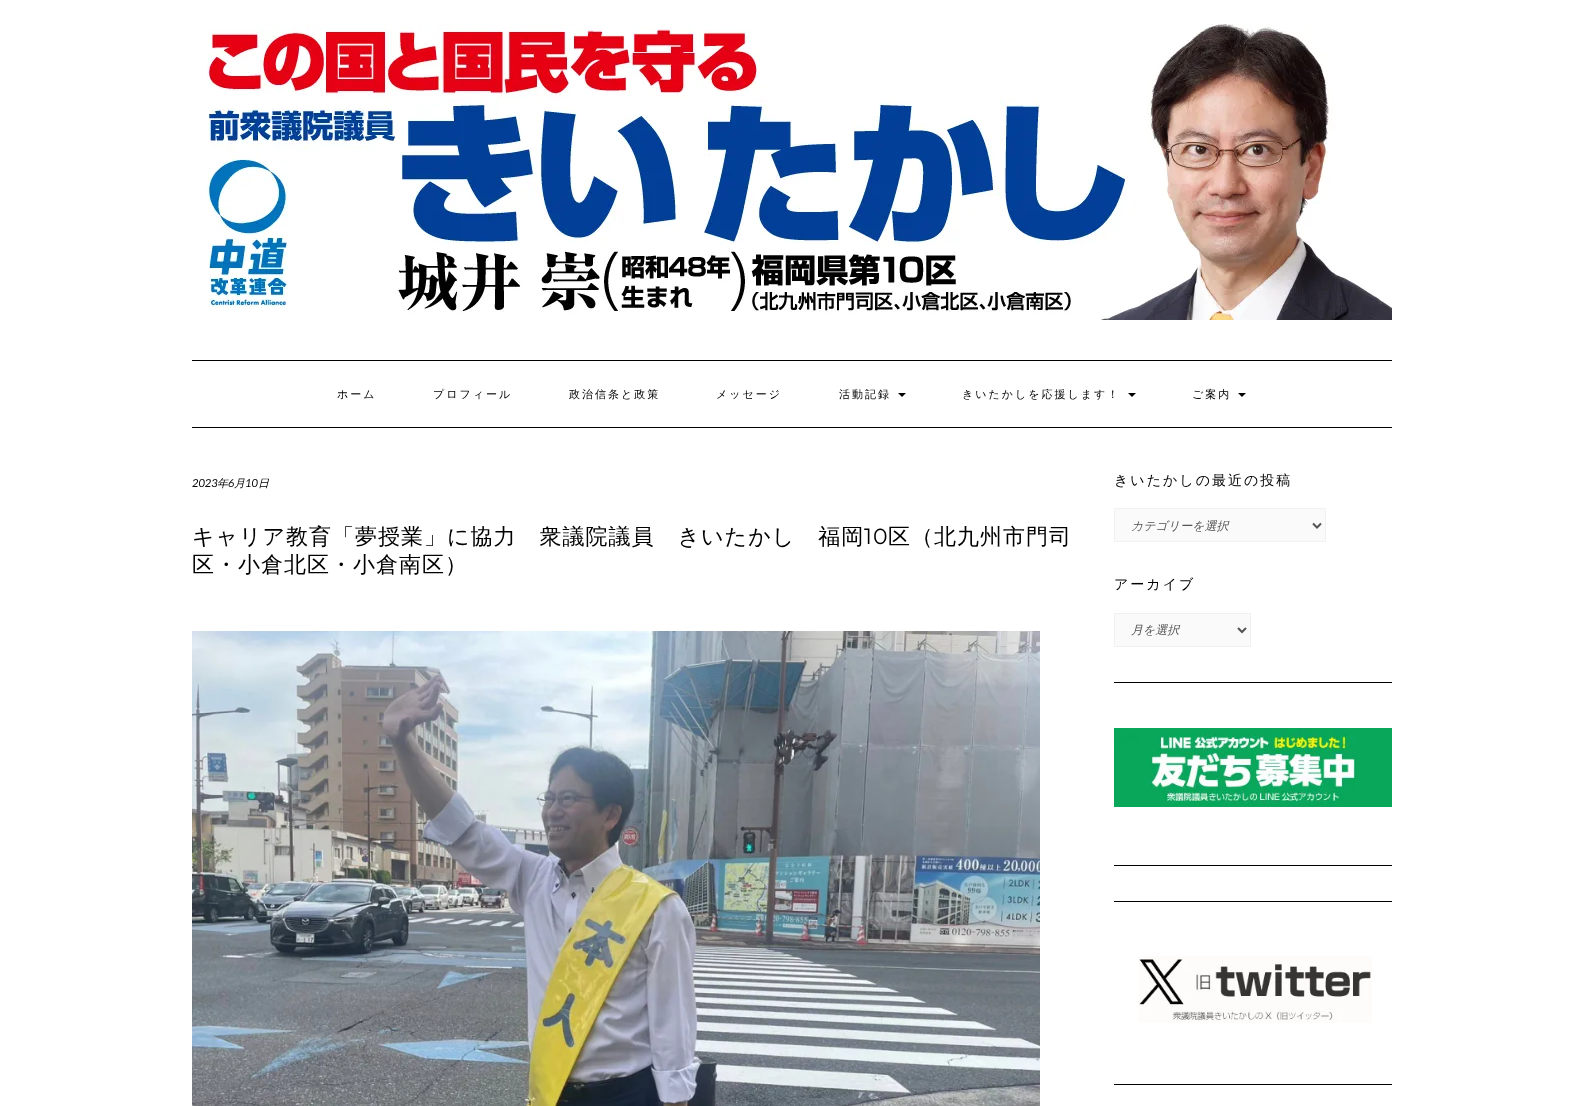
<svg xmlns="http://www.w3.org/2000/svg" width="1583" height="1106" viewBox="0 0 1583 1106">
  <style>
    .t1 { font: 500 11px WenQuanYi Zen Hei; letter-spacing: 2px; fill: #000; }
    .t2 { font: italic 11px Lato; fill: #000; }
    .t3 { font: italic 500 11px WenQuanYi Zen Hei; fill: #000; }
    .t4 { font: 500 22px WenQuanYi Zen Hei; letter-spacing: 1px; fill: #000; }
    .t5 { font: 22px Montserrat; letter-spacing: 1px; fill: #000; }
    .t6 { font: 500 14px WenQuanYi Zen Hei; letter-spacing: 2px; fill: #000; }
    .t7 { font: italic 500 12px WenQuanYi Zen Hei; fill: #545454; }
  </style>
  <rect width="100%" height="100%" fill="#fff"/>
  <image x="207" y="24" width="1185" height="296" href="images/1.png"/>
  <rect x="192" y="360" width="1200" height="1" fill="#000"/>
  <rect x="192" y="427" width="1200" height="1" fill="#000"/>
  <text x="337" y="398" class="t1">ホーム</text>
  <text x="433" y="398" class="t1">プロフィール</text>
  <text x="569" y="398" class="t1">政治信条と政策</text>
  <text x="716" y="398" class="t1">メッセージ</text>
  <text x="839" y="398" class="t1">活動記録</text>
  <path d="M898 393H906L902 397Z" fill="#000"/>
  <text x="962" y="398" class="t1">きいたかしを応援します！</text>
  <path d="M1128 393H1136L1132 397Z" fill="#000"/>
  <text x="1192" y="398" class="t1">ご案内</text>
  <path d="M1238 393H1246L1242 397Z" fill="#000"/>
  <text x="192" y="487" class="t2">2023</text>
  <text x="217" y="487" class="t3">年</text>
  <text x="228" y="487" class="t2">6</text>
  <text x="234" y="487" class="t3">月</text>
  <text x="245" y="487" class="t2">10</text>
  <text x="258" y="487" class="t3">日</text>
  <text x="192" y="544" class="t4">キャリア教育「夢授業」に協力　衆議院議員　きいたかし　福岡</text>
  <text x="864" y="544" class="t5">10</text>
  <text x="888" y="544" class="t4">区（北九州市門司</text>
  <text x="192" y="572" class="t4">区・小倉北区・小倉南区）</text>
  <image x="192" y="631" width="848" height="475" href="images/2.png"/>
  <text x="1114" y="485" class="t6">きいたかしの最近の投稿</text>
  <rect x="1114.5" y="508.5" width="211" height="33" fill="#fafafa" stroke="#f1f1f1"/>
  <path d="M1313 523.5L1317 527.5L1321 523.5" fill="none" stroke="#545454" stroke-width="2"/>
  <text x="1131" y="530" class="t7">カテゴリーを選択</text>
  <text x="1114" y="589" class="t6">アーカイブ</text>
  <rect x="1114.5" y="613.5" width="136" height="33" fill="#fafafa" stroke="#f1f1f1"/>
  <path d="M1238 628L1242 632L1246 628" fill="none" stroke="#545454" stroke-width="2"/>
  <text x="1131" y="634" class="t7">月を選択</text>
  <rect x="1114" y="682" width="278" height="1" fill="#000"/>
  <rect x="1114" y="865" width="278" height="1" fill="#000"/>
  <image x="1114" y="728" width="278" height="79" href="images/3.png"/>
  <rect x="1114" y="901" width="278" height="1" fill="#000"/>
  <rect x="1114" y="1084" width="278" height="1" fill="#000"/>
  <image x="1139" y="956" width="233" height="67" href="images/4.png"/>
</svg>
